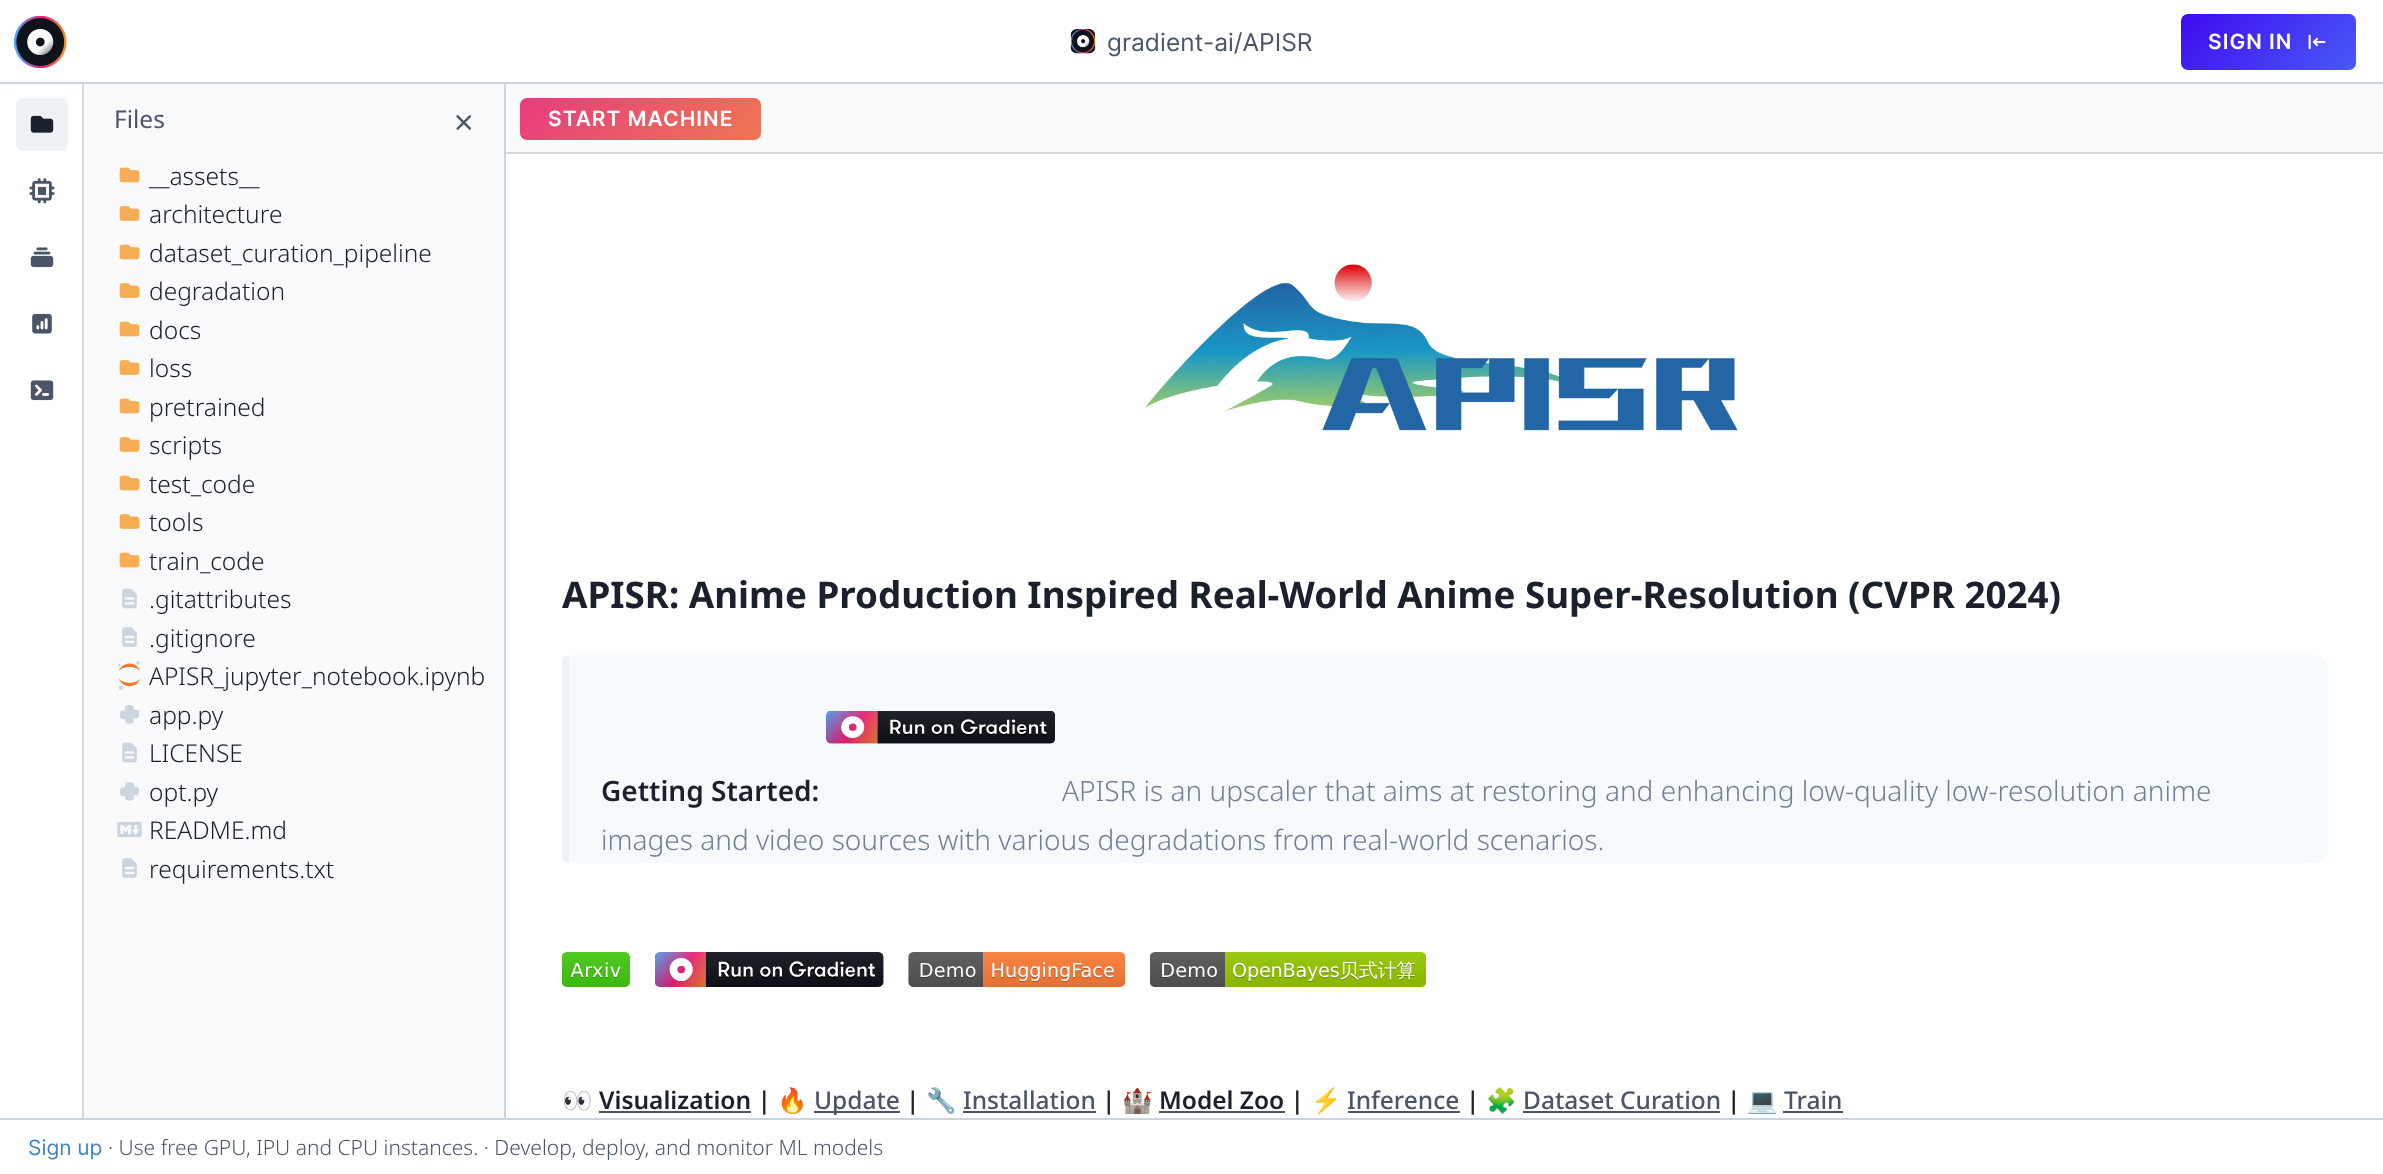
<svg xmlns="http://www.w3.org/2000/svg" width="2383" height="1174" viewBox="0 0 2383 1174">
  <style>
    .t1 { font: 24.5px Inter; fill: #4a5568; }
    .t2 { font: 600 21px Inter; letter-spacing: 1px; fill: #fff; }
    .t3 { font: 24.5px Noto Sans; fill: #4a5568; }
    .t4 { font: 300 24.5px Noto Sans; fill: #1a202c; }
    .t5 { font: bold 36.75px Noto Sans; fill: #1a202c; }
    .t6 { font: 600 28px Noto Sans; fill: #1a202c; }
    .t7 { font: 300 28px Noto Sans; fill: #718096; }
    .t8 { font: 24.5px Noto Color Emoji; fill: #4a5568; }
    .t9 { font: 600 24.5px Noto Sans; fill: #1a202c; }
    .t10 { font: 500 24.5px Noto Sans; fill: #4a5568; }
    .t11 { font: 21px Inter; fill: #4183c4; }
    .t12 { font: 300 21px Noto Sans; fill: #4a5568; }
  </style>
  <defs>
    <linearGradient id="g1" gradientUnits="userSpaceOnUse" x1="2326" y1="100" x2="2210" y2="-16"><stop offset="0" stop-color="#485af7"/><stop offset="1" stop-color="#3f0aef"/></linearGradient>
    <linearGradient id="g2" gradientUnits="userSpaceOnUse" x1="711" y1="190" x2="570" y2="48"><stop offset="0" stop-color="#ee7752"/><stop offset="1" stop-color="#e73c7e"/></linearGradient>
  </defs>
  <rect width="100%" height="100%" fill="#fff"/>
  <rect x="0" y="82" width="2383" height="2" fill="#cbd5e0"/>
  <image x="14" y="16" width="53" height="52" href="images/1.png"/>
  <rect x="1071" y="30" width="25" height="24" rx="7" fill="#e2e8f0"/>
  <image x="1070" y="29" width="25" height="25" href="images/2.png"/>
  <text x="1107" y="51" class="t1">gradient-ai/APISR</text>
  <rect x="2181" y="14" width="175" height="56" rx="7" fill="url(#g1)"/>
  <text x="2208" y="49" class="t2">SIGN IN</text>
  <image x="2308" y="34" width="18" height="16" href="images/3.png"/>
  <rect x="504" y="84" width="2" height="1034" fill="#cbd5e0"/>
  <rect x="16" y="98" width="52" height="53" rx="7" fill="#edf2f7"/>
  <image x="30" y="115" width="24" height="18" href="images/4.png"/>
  <image x="29" y="178" width="26" height="26" href="images/5.png"/>
  <image x="30" y="247" width="24" height="21" href="images/6.png"/>
  <image x="32" y="313" width="20" height="21" href="images/7.png"/>
  <image x="30" y="380" width="24" height="21" href="images/8.png"/>
  <rect x="84" y="84" width="420" height="1034" fill="#f8fafb"/>
  <rect x="82" y="84" width="2" height="1034" fill="#d5d9de"/>
  <text x="114" y="128" class="t3">Files</text>
  <image x="456" y="115" width="16" height="15" href="images/9.png"/>
  <image x="119" y="167" width="21" height="16" href="images/10.png"/>
  <text x="149" y="185" class="t4">__assets__</text>
  <image x="119" y="206" width="21" height="15" href="images/11.png"/>
  <text x="149" y="223" class="t4">architecture</text>
  <image x="119" y="244" width="21" height="16" href="images/10.png"/>
  <text x="149" y="262" class="t4">dataset_curation_pipeline</text>
  <image x="119" y="283" width="21" height="15" href="images/11.png"/>
  <text x="149" y="300" class="t4">degradation</text>
  <image x="119" y="321" width="21" height="16" href="images/10.png"/>
  <text x="149" y="339" class="t4">docs</text>
  <image x="119" y="360" width="21" height="15" href="images/11.png"/>
  <text x="149" y="377" class="t4">loss</text>
  <image x="119" y="398" width="21" height="16" href="images/10.png"/>
  <text x="149" y="416" class="t4">pretrained</text>
  <image x="119" y="437" width="21" height="15" href="images/11.png"/>
  <text x="149" y="454" class="t4">scripts</text>
  <image x="119" y="475" width="21" height="16" href="images/10.png"/>
  <text x="149" y="493" class="t4">test_code</text>
  <image x="119" y="514" width="21" height="15" href="images/11.png"/>
  <text x="149" y="531" class="t4">tools</text>
  <image x="119" y="552" width="21" height="16" href="images/10.png"/>
  <text x="149" y="570" class="t4">train_code</text>
  <image x="122" y="588" width="15" height="21" href="images/12.png"/>
  <text x="149" y="608" class="t4">.gitattributes</text>
  <image x="122" y="627" width="15" height="20" href="images/13.png"/>
  <text x="149" y="647" class="t4">.gitignore</text>
  <image x="118" y="661" width="23" height="29" href="images/14.png"/>
  <text x="149" y="685" class="t4">APISR_jupyter_notebook.ipynb</text>
  <image x="120" y="705" width="19" height="19" href="images/15.png"/>
  <text x="149" y="724" class="t4">app.py</text>
  <image x="122" y="742" width="15" height="21" href="images/12.png"/>
  <text x="149" y="762" class="t4">LICENSE</text>
  <image x="120" y="782" width="19" height="19" href="images/15.png"/>
  <text x="149" y="801" class="t4">opt.py</text>
  <image x="117" y="821" width="25" height="17" href="images/16.png"/>
  <text x="149" y="839" class="t4">README.md</text>
  <image x="122" y="858" width="15" height="20" href="images/13.png"/>
  <text x="149" y="878" class="t4">requirements.txt</text>
  <rect x="506" y="84" width="1877" height="68" fill="#f8fafb"/>
  <rect x="506" y="152" width="1877" height="2" fill="#d5d9de"/>
  <rect x="520" y="98" width="241" height="42" rx="7" fill="url(#g2)"/>
  <text x="548" y="126" class="t2">START MACHINE</text>
  <image x="1145" y="264" width="593" height="167" href="images/17.png"/>
  <text x="562" y="608" class="t5">APISR: Anime Production Inspired Real-World Anime Super-Resolution (CVPR 2024)</text>
  <rect x="562" y="655" width="1766" height="208" rx="14" fill="#f7fafc"/>
  <path d="M569 655V863C565 863 562 860 562 856V662C562 658 565 655 569 655Z" fill="#edf2f7"/>
  <image x="826" y="711" width="229" height="33" href="images/18.png"/>
  <text x="601" y="801" class="t6">Getting Started:</text>
  <text x="1062" y="801" class="t7">APISR is an upscaler that aims at restoring and enhancing low-quality low-resolution anime</text>
  <text x="601" y="850" class="t7">images and video sources with various degradations from real-world scenarios.</text>
  <image x="562" y="952" width="68" height="35" href="images/19.png"/>
  <image x="655" y="952" width="229" height="35" href="images/20.png"/>
  <image x="908" y="952" width="217" height="35" href="images/21.png"/>
  <image x="1150" y="952" width="276" height="35" href="images/22.png"/>
  <text x="562" y="1109" class="t8">👀</text>
  <rect x="599" y="1111" width="152" height="2" fill="#4a5568"/>
  <text x="599" y="1109" class="t9">Visualization |</text>
  <text x="777" y="1109" class="t8">🔥</text>
  <rect x="814" y="1111" width="86" height="2" fill="#4a5568"/>
  <text x="814" y="1109" class="t10">Update</text>
  <text x="906" y="1109" class="t9">|</text>
  <text x="926" y="1109" class="t8">🔧</text>
  <text x="963" y="1109" class="t10">Installation</text>
  <rect x="963" y="1111" width="133" height="2" fill="#4a5568"/>
  <text x="1102" y="1109" class="t9">|</text>
  <text x="1122" y="1109" class="t8">🏰</text>
  <rect x="1159" y="1111" width="126" height="2" fill="#4a5568"/>
  <text x="1159" y="1109" class="t9">Model Zoo |</text>
  <text x="1311" y="1109" class="t8">⚡</text>
  <text x="1347" y="1109" class="t10">Inference</text>
  <rect x="1348" y="1111" width="112" height="2" fill="#4a5568"/>
  <text x="1466" y="1109" class="t9">|</text>
  <text x="1486" y="1109" class="t8">🧩</text>
  <text x="1523" y="1109" class="t10">Dataset Curation</text>
  <rect x="1523" y="1111" width="197" height="2" fill="#4a5568"/>
  <text x="1727" y="1109" class="t9">|</text>
  <text x="1747" y="1109" class="t8">💻</text>
  <text x="1784" y="1109" class="t10">Train</text>
  <rect x="1783" y="1111" width="60" height="2" fill="#4a5568"/>
  <rect x="0" y="1118" width="2383" height="2" fill="#cbd5e0"/>
  <text x="28" y="1155" class="t11">Sign up</text>
  <text x="108" y="1155" class="t12">· Use free GPU, IPU and CPU instances. · Develop, deploy, and monitor ML models</text>
</svg>
